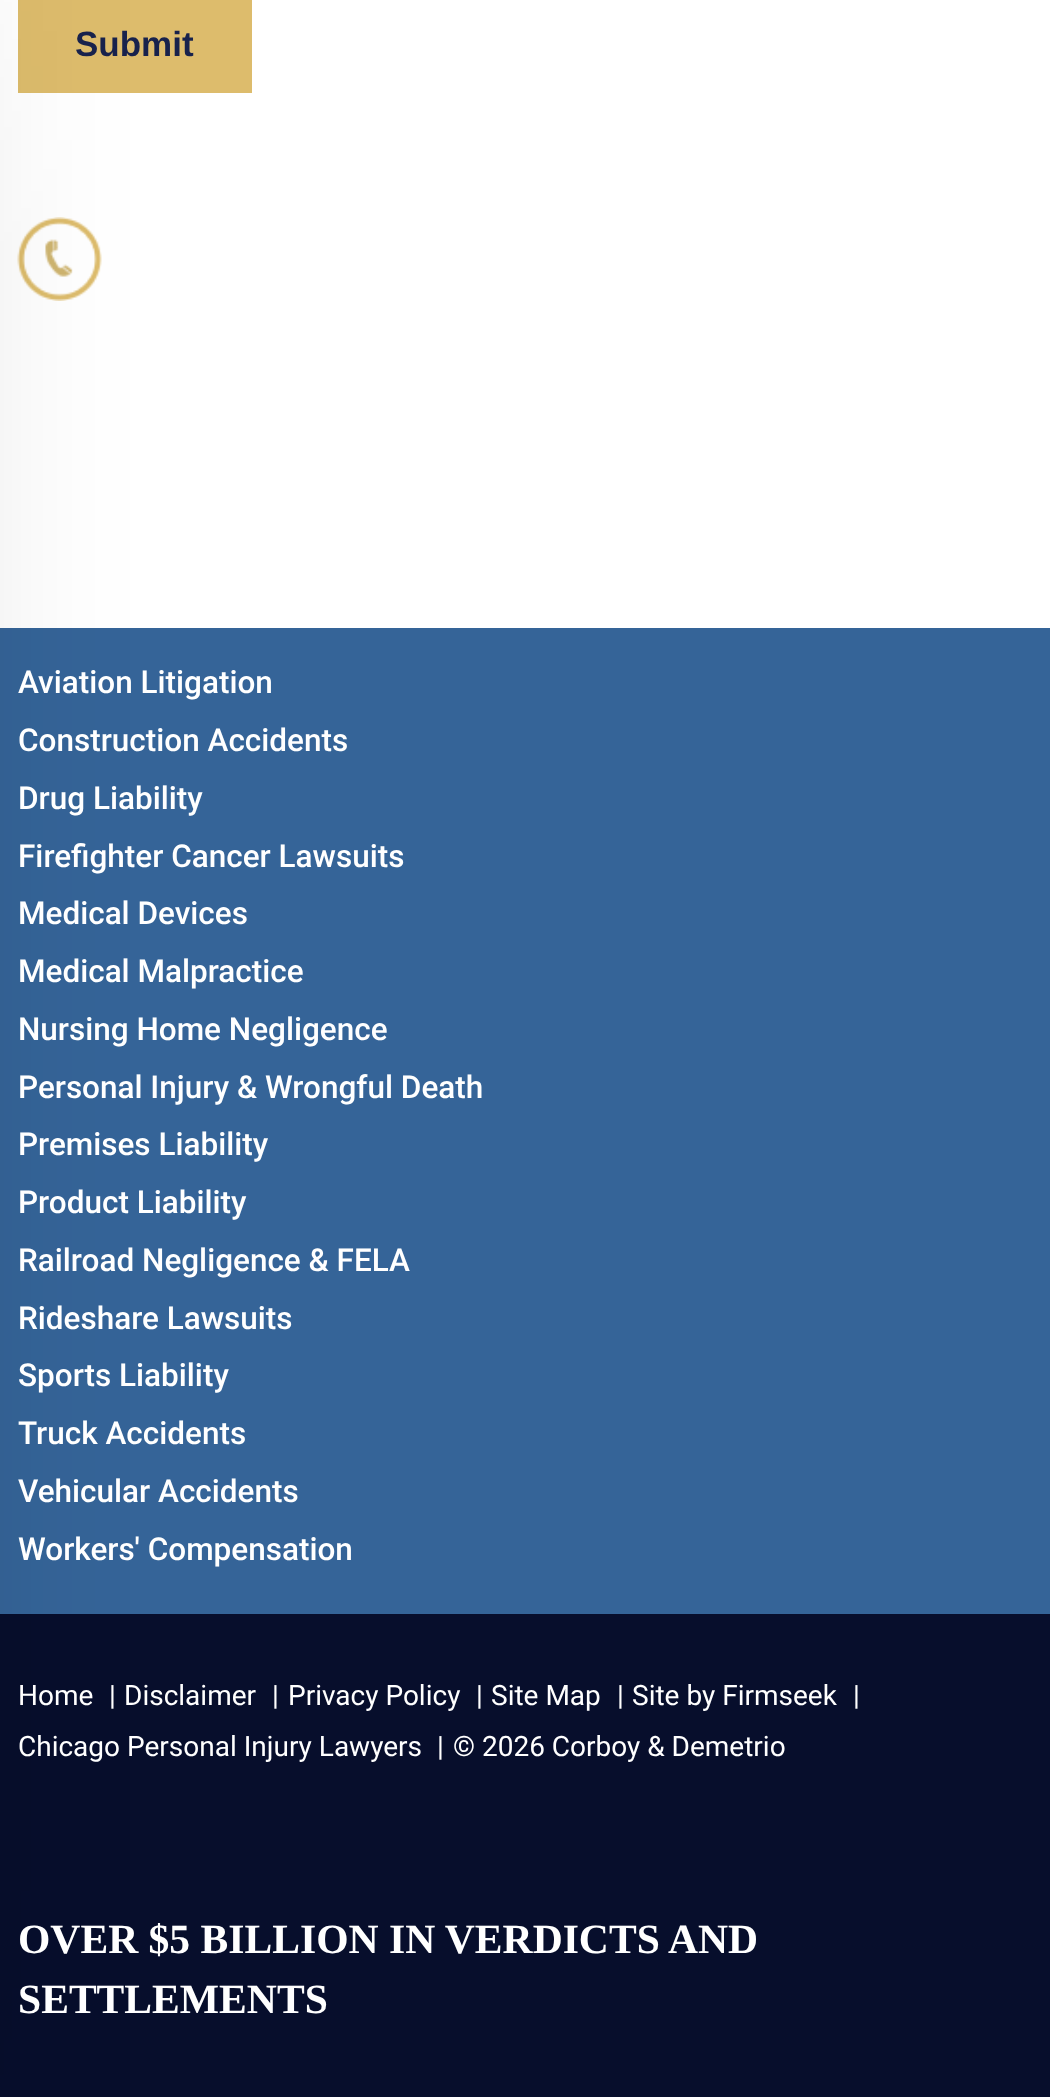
<svg xmlns="http://www.w3.org/2000/svg" width="1050" height="2097" viewBox="0 0 1050 2097">
  <style>
    .t1 { font: bold 35px Liberation Sans; fill: #18224c; }
    .t2 { font: 500 31.5px Roboto; fill: #fff; }
    .t3 { font: 28px Roboto; fill: #fff; }
    .t4 { font: bold 41.6px Liberation Serif; fill: #fff; }
  </style>
  <rect width="100%" height="100%" fill="#fff"/>
  <rect x="18" y="0" width="234" height="93" fill="#ddbc6c"/>
  <image x="17" y="217" width="85" height="84" href="images/1.png"/>
  <rect x="0" y="628" width="1050" height="986" fill="#356498"/>
  <rect x="0" y="1614" width="1050" height="483" fill="#070e2c"/>
  <rect x="-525" y="-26" width="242" height="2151" fill="#000000cc" filter="blur(175px)"/>
  <text x="75" y="56" class="t1">Submit</text>
  <text x="18" y="693" class="t2">Aviation Litigation</text>
  <text x="18" y="751" class="t2">Construction Accidents</text>
  <text x="18" y="809" class="t2">Drug Liability</text>
  <text x="18" y="867" class="t2">Firefighter Cancer Lawsuits</text>
  <text x="18" y="924" class="t2">Medical Devices</text>
  <text x="18" y="982" class="t2">Medical Malpractice</text>
  <text x="18" y="1040" class="t2">Nursing Home Negligence</text>
  <text x="18" y="1098" class="t2">Personal Injury &amp; Wrongful Death</text>
  <text x="18" y="1155" class="t2">Premises Liability</text>
  <text x="18" y="1213" class="t2">Product Liability</text>
  <text x="18" y="1271" class="t2">Railroad Negligence &amp; FELA</text>
  <text x="18" y="1329" class="t2">Rideshare Lawsuits</text>
  <text x="18" y="1386" class="t2">Sports Liability</text>
  <text x="18" y="1444" class="t2">Truck Accidents</text>
  <text x="18" y="1502" class="t2">Vehicular Accidents</text>
  <text x="18" y="1560" class="t2">Workers' Compensation</text>
  <text x="18" y="1705" class="t3">Home</text>
  <text x="109" y="1705" class="t3">|</text>
  <text x="124" y="1705" class="t3">Disclaimer</text>
  <text x="272" y="1705" class="t3">|</text>
  <text x="288" y="1705" class="t3">Privacy Policy</text>
  <text x="476" y="1705" class="t3">|</text>
  <text x="491" y="1705" class="t3">Site Map</text>
  <text x="617" y="1705" class="t3">|</text>
  <text x="632" y="1705" class="t3">Site by Firmseek</text>
  <text x="853" y="1705" class="t3">|</text>
  <text x="18" y="1756" class="t3">Chicago Personal Injury Lawyers</text>
  <text x="437" y="1756" class="t3">|</text>
  <text x="453" y="1756" class="t3">© 2026 Corboy &amp; Demetrio</text>
  <text x="18" y="1953" class="t4">OVER $5 BILLION IN VERDICTS AND</text>
  <text x="18" y="2013" class="t4">SETTLEMENTS</text>
</svg>
